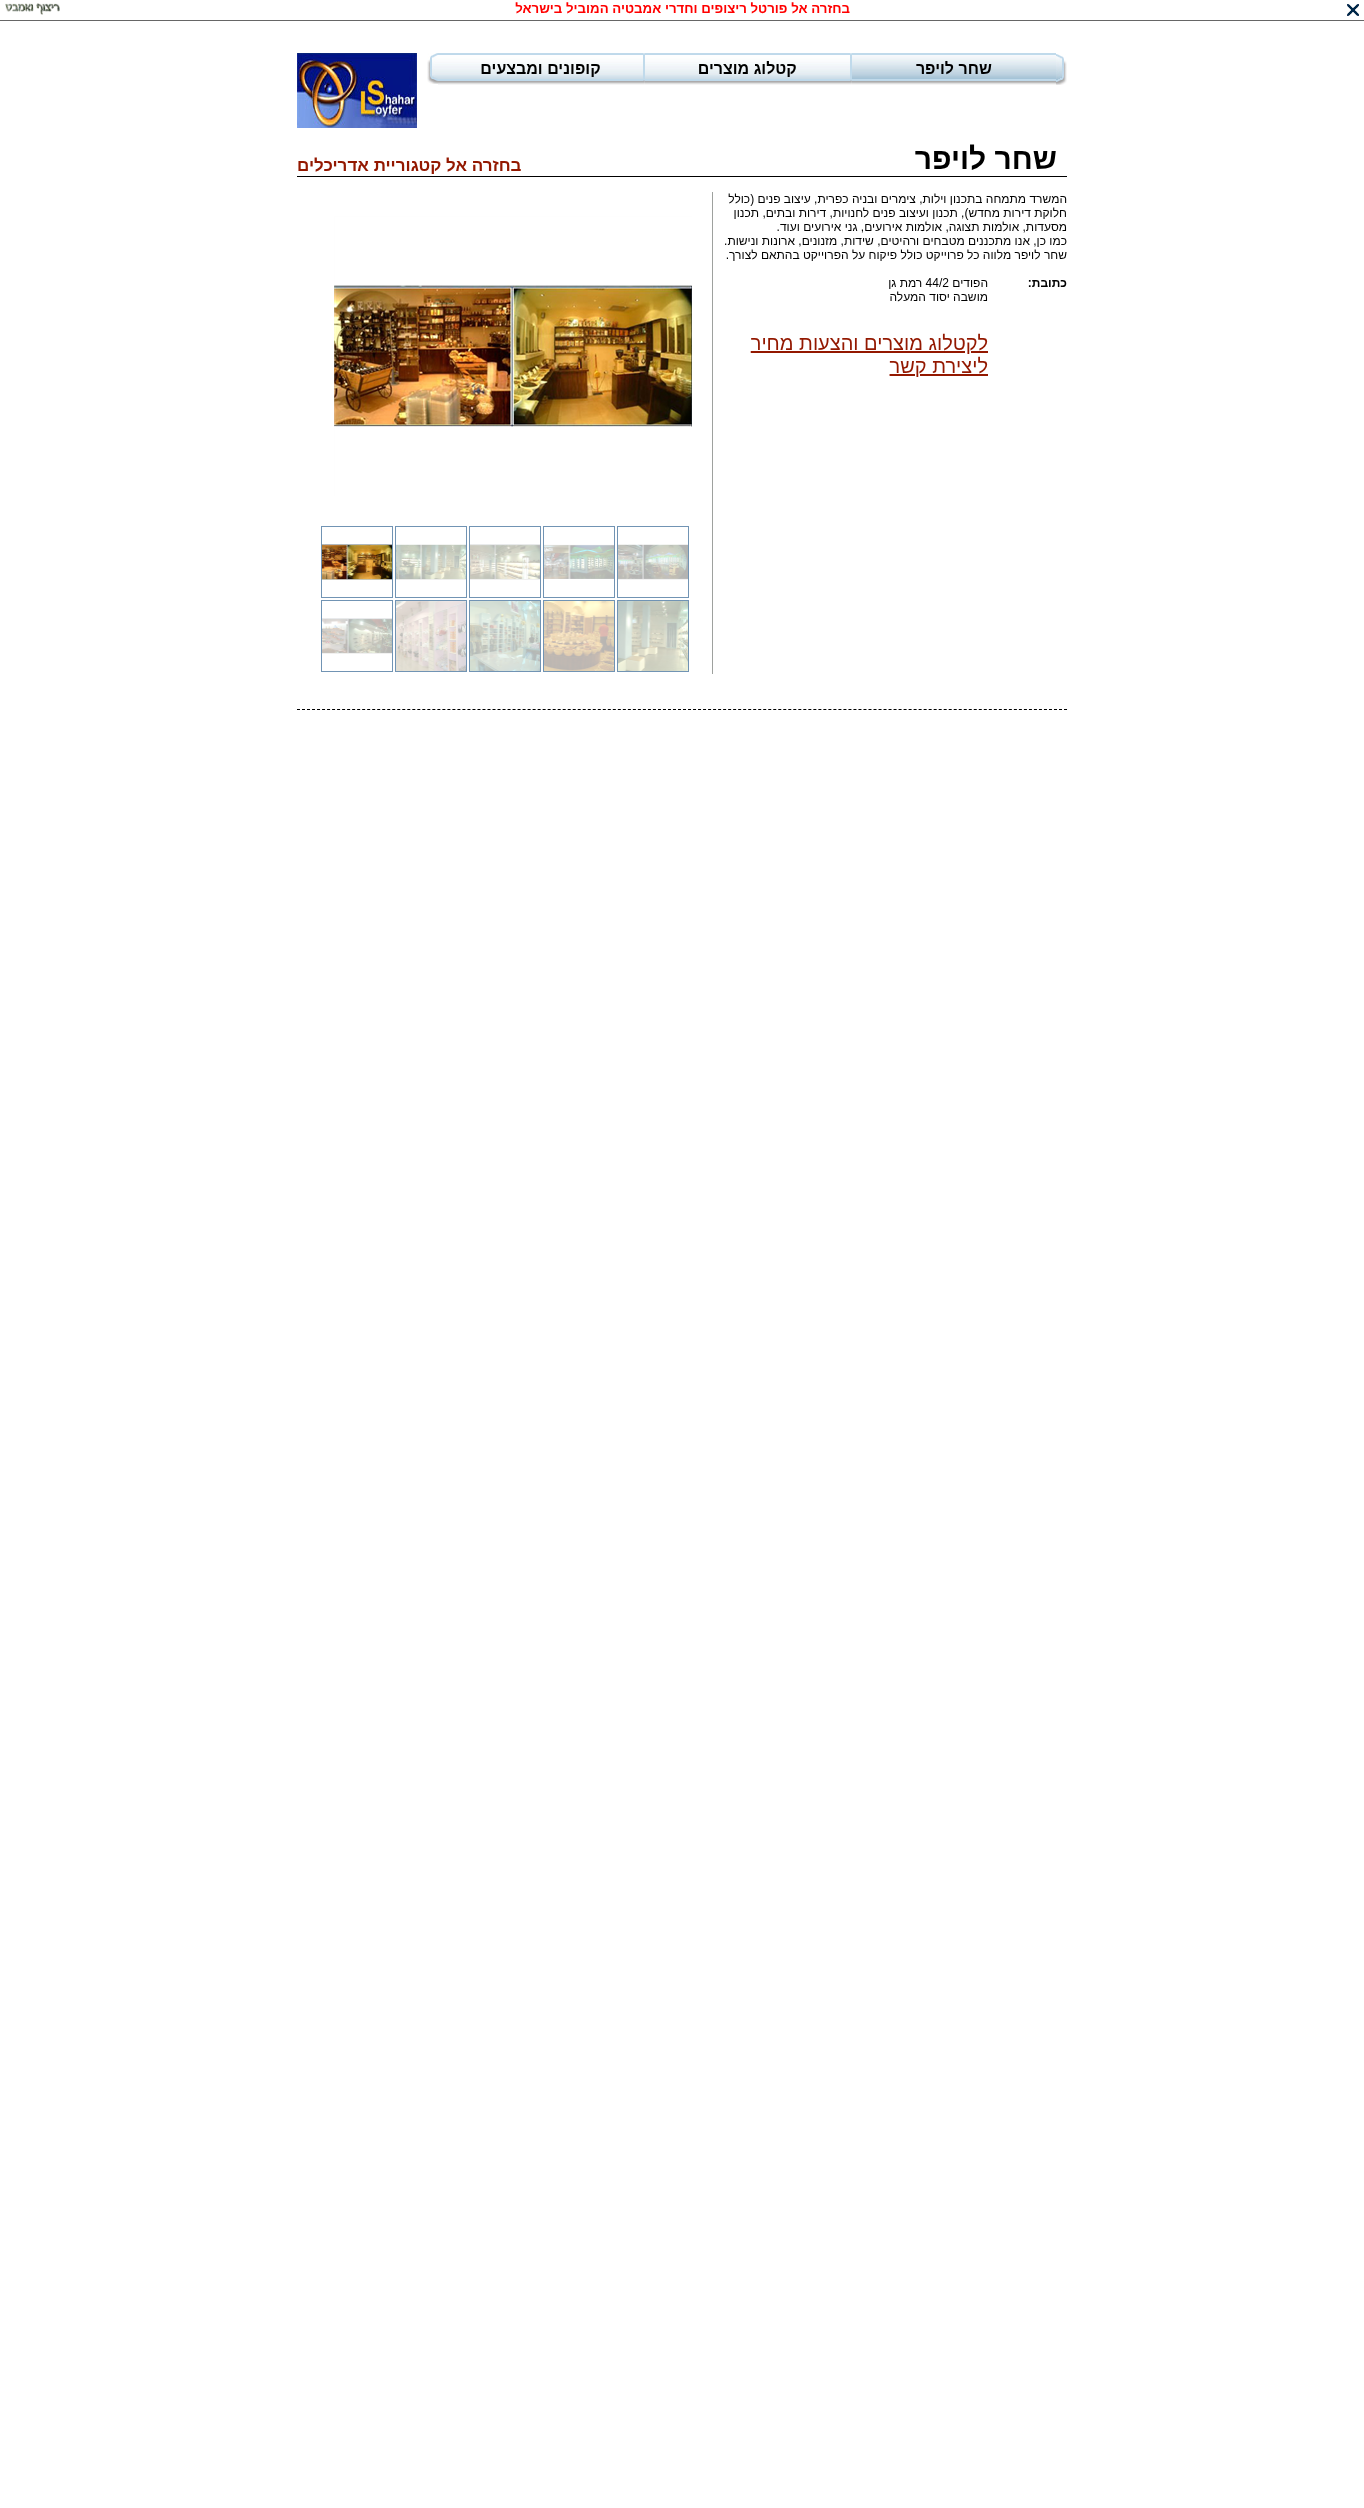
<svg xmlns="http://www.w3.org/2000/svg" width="1364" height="2508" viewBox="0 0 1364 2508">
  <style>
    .t1 { font: bold 13.25px Liberation Sans; direction: rtl; fill: #f00; }
  </style>
  <rect width="100%" height="100%" fill="#fff"/>
  <rect x="0" y="20" width="1364" height="1" fill="#666"/>
  <image x="1347" y="4" width="12" height="12" href="images/1.png"/>
  <text x="850" y="13" class="t1">בחזרה אל פורטל ריצופים וחדרי אמבטיה המוביל בישראל</text>
  <image x="5" y="3" width="55" height="12" href="images/2.png"/>
  <image x="297" y="53" width="770" height="657" href="images/3.png"/>
</svg>
